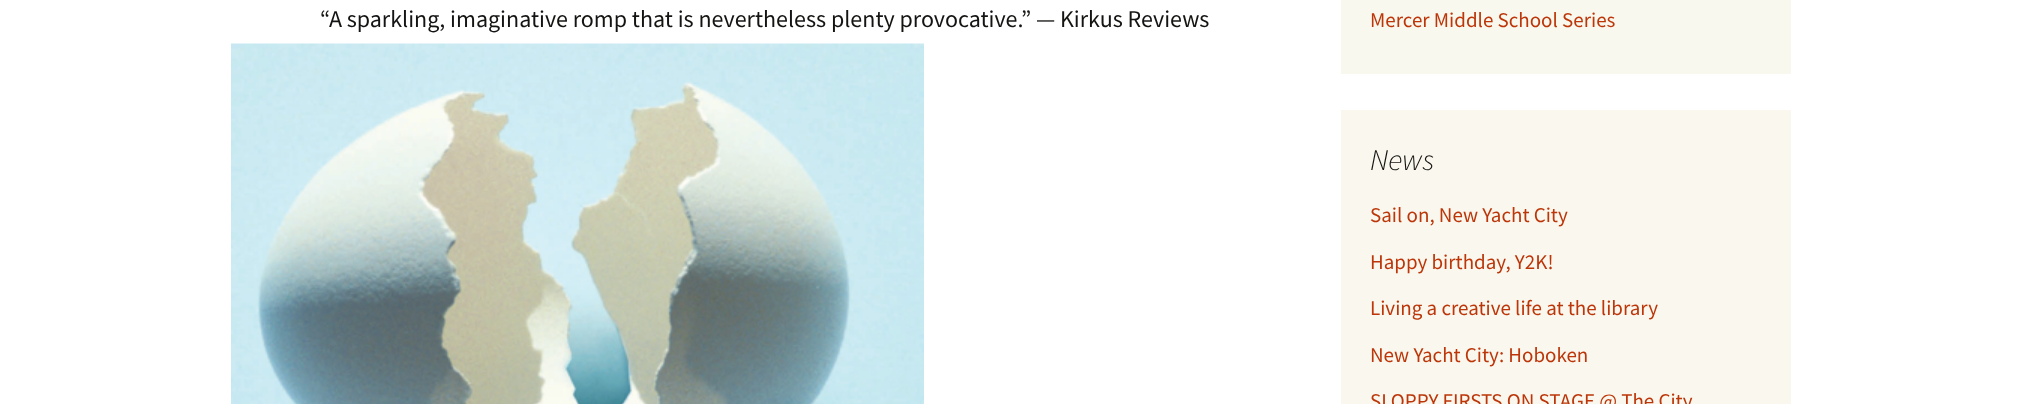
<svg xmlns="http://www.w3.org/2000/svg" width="2020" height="404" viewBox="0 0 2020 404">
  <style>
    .t1 { font: 24px Source Sans Pro; fill: #141412; }
    .t2 { font: 21px Source Sans Pro; fill: #bc360a; }
    .t3 { font: italic 300 30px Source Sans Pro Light; fill: #141412; }
  </style>
  <rect width="100%" height="100%" fill="#fff"/>
  <text x="320" y="27" class="t1">“A sparkling, imaginative romp that is nevertheless plenty provocative.” — Kirkus Reviews</text>
  <image x="231" y="43" width="693" height="361" href="images/1.png"/>
  <rect x="1341" y="0" width="450" height="74" fill="#f9f8ee"/>
  <text x="1370" y="27" class="t2">Mercer Middle School Series</text>
  <rect x="1341" y="110" width="450" height="294" fill="#faf8ee"/>
  <text x="1370" y="170" class="t3">News</text>
  <text x="1370" y="222" class="t2">Sail on, New Yacht City</text>
  <text x="1370" y="269" class="t2">Happy birthday, Y2K!</text>
  <text x="1370" y="315" class="t2">Living a creative life at the library</text>
  <text x="1370" y="362" class="t2">New Yacht City: Hoboken</text>
  <text x="1370" y="408" class="t2">SLOPPY FIRSTS ON STAGE @ The City</text>
</svg>
